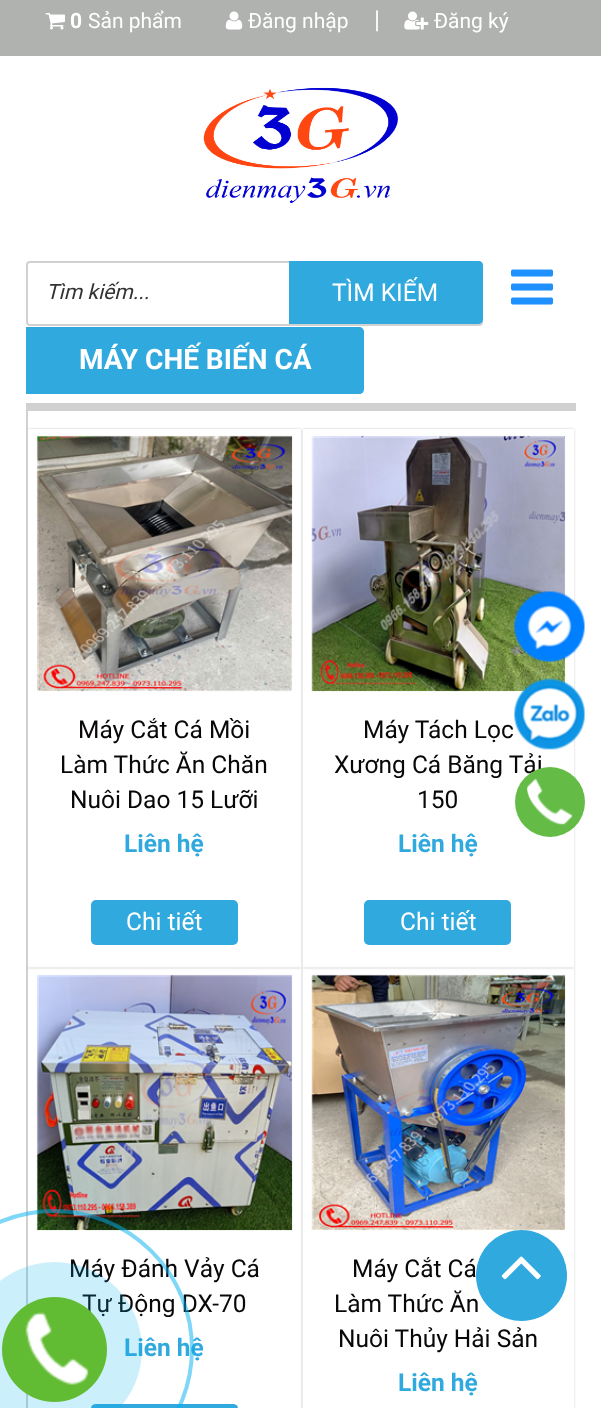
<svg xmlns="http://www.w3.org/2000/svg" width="601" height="1408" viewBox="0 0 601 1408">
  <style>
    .t1 { font: bold 21px Roboto; fill: #fff; }
    .t2 { font: 21px Roboto; fill: #fff; }
    .t3 { font: 24.5px Roboto; fill: #fff; }
    .t4 { font: italic 21px Roboto; fill: #333; }
    .t5 { font: bold 28px Roboto; fill: #fff; }
    .t6 { font: 24.5px Roboto; fill: #090707; }
    .t7 { font: bold 24.5px Roboto; fill: #30a9de; }
  </style>
  <defs>
    <clipPath id="clip1"><path d="M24 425H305V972H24ZM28 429H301V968H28Z" clip-rule="evenodd"/></clipPath>
    <clipPath id="clip2"><path d="M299 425H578V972H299ZM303 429H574V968H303Z" clip-rule="evenodd"/></clipPath>
    <clipPath id="clip3"><path d="M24 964H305V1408H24ZM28 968H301V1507H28Z" clip-rule="evenodd"/></clipPath>
    <clipPath id="clip4"><path d="M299 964H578V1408H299ZM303 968H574V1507H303Z" clip-rule="evenodd"/></clipPath>
  </defs>
  <rect width="100%" height="100%" fill="#fff"/>
  <rect x="0" y="0" width="601" height="56" fill="#b0b2af"/>
  <image x="45" y="13" width="20" height="17" href="images/1.png"/>
  <text x="70" y="28" class="t1">0</text>
  <text x="88" y="28" class="t2">Sản phẩm</text>
  <image x="225" y="11" width="18" height="19" href="images/2.png"/>
  <text x="248" y="28" class="t2">Đăng nhập</text>
  <text x="374" y="28" class="t3">|</text>
  <image x="404" y="11" width="25" height="19" href="images/3.png"/>
  <text x="434" y="28" class="t2">Đăng ký</text>
  <image x="203" y="87" width="196" height="117" href="images/4.png"/>
  <rect x="27" y="262" width="455" height="63" rx="3" fill="none" stroke="#d1d1d1" stroke-width="2"/>
  <text x="46" y="299" class="t4">Tìm kiếm...</text>
  <path d="M289 261H478C481 261 483 263 483 266V319C483 322 481 324 478 324H289Z" fill="#30a9de"/>
  <text x="332" y="301" class="t3">TÌM KIẾM</text>
  <image x="511" y="269" width="42" height="36" href="images/5.png"/>
  <path d="M26 327H359C362 327 364 329 364 332V389C364 392 362 394 359 394H26Z" fill="#30a9de"/>
  <text x="79" y="369" class="t5">MÁY CHẾ BIẾN CÁ</text>
  <rect x="26" y="403" width="550" height="8" fill="#d1d1d1"/>
  <rect x="26" y="403" width="2" height="1005" fill="#d1d1d1"/>
  <g clip-path="url(#clip1)">
    <rect x="28" y="429" width="273" height="539" fill="#ccc" filter="blur(1px)"/>
  </g>
  <image x="36" y="435" width="257" height="257" href="images/6.png"/>
  <text x="78" y="738" class="t6">Máy Cắt Cá Mồi</text>
  <text x="60" y="773" class="t6">Làm Thức Ăn Chăn</text>
  <text x="70" y="808" class="t6">Nuôi Dao 15 Lưỡi</text>
  <text x="124" y="852" class="t7">Liên hệ</text>
  <rect x="91" y="900" width="147" height="45" rx="5" fill="#30a9de"/>
  <text x="126" y="930" class="t3">Chi tiết</text>
  <g clip-path="url(#clip2)">
    <rect x="303" y="429" width="271" height="539" fill="#ccc" filter="blur(1px)"/>
  </g>
  <image x="311" y="435" width="255" height="257" href="images/7.png"/>
  <text x="363" y="738" class="t6">Máy Tách Lọc</text>
  <text x="334" y="773" class="t6">Xương Cá Băng Tải</text>
  <text x="417" y="808" class="t6">150</text>
  <text x="398" y="852" class="t7">Liên hệ</text>
  <rect x="364" y="900" width="147" height="45" rx="5" fill="#30a9de"/>
  <text x="400" y="930" class="t3">Chi tiết</text>
  <g clip-path="url(#clip3)">
    <rect x="28" y="968" width="273" height="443" fill="#ccc" filter="blur(1px)"/>
  </g>
  <image x="36" y="974" width="257" height="257" href="images/8.png"/>
  <text x="69" y="1277" class="t6">Máy Đánh Vảy Cá</text>
  <text x="82" y="1312" class="t6">Tự Động DX-70</text>
  <text x="124" y="1356" class="t7">Liên hệ</text>
  <rect x="91" y="1404" width="147" height="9" rx="5" fill="#30a9de"/>
  <g clip-path="url(#clip4)">
    <rect x="303" y="968" width="271" height="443" fill="#ccc" filter="blur(1px)"/>
  </g>
  <image x="311" y="974" width="255" height="257" href="images/9.png"/>
  <text x="352" y="1277" class="t6">Máy Cắt Cá</text>
  <text x="334" y="1312" class="t6">Làm Thức Ăn</text>
  <text x="338" y="1347" class="t6">Nuôi Thủy Hải Sản</text>
  <text x="398" y="1391" class="t7">Liên hệ</text>
  <image x="514" y="591" width="71" height="71" href="images/10.png"/>
  <image x="514" y="678" width="71" height="72" href="images/11.png"/>
  <circle cx="550" cy="802" r="35" fill="#64bc46"/>
  <image x="527" y="778" width="46" height="47" href="images/12.png"/>
  <circle cx="521.5" cy="1275.5" r="45.5" fill="#30a9de"/>
  <image x="501" y="1256" width="40" height="24" href="images/13.png"/>
  <circle cx="54" cy="1349" r="138" fill="none" stroke="#00aff280" stroke-width="4"/>
  <circle cx="54.5" cy="1349.5" r="87.5" fill="#00aff233"/>
  <circle cx="54.5" cy="1349.5" r="52.5" fill="#62bc33"/>
  <image x="25" y="1312" width="64" height="73" href="images/14.png"/>
</svg>
